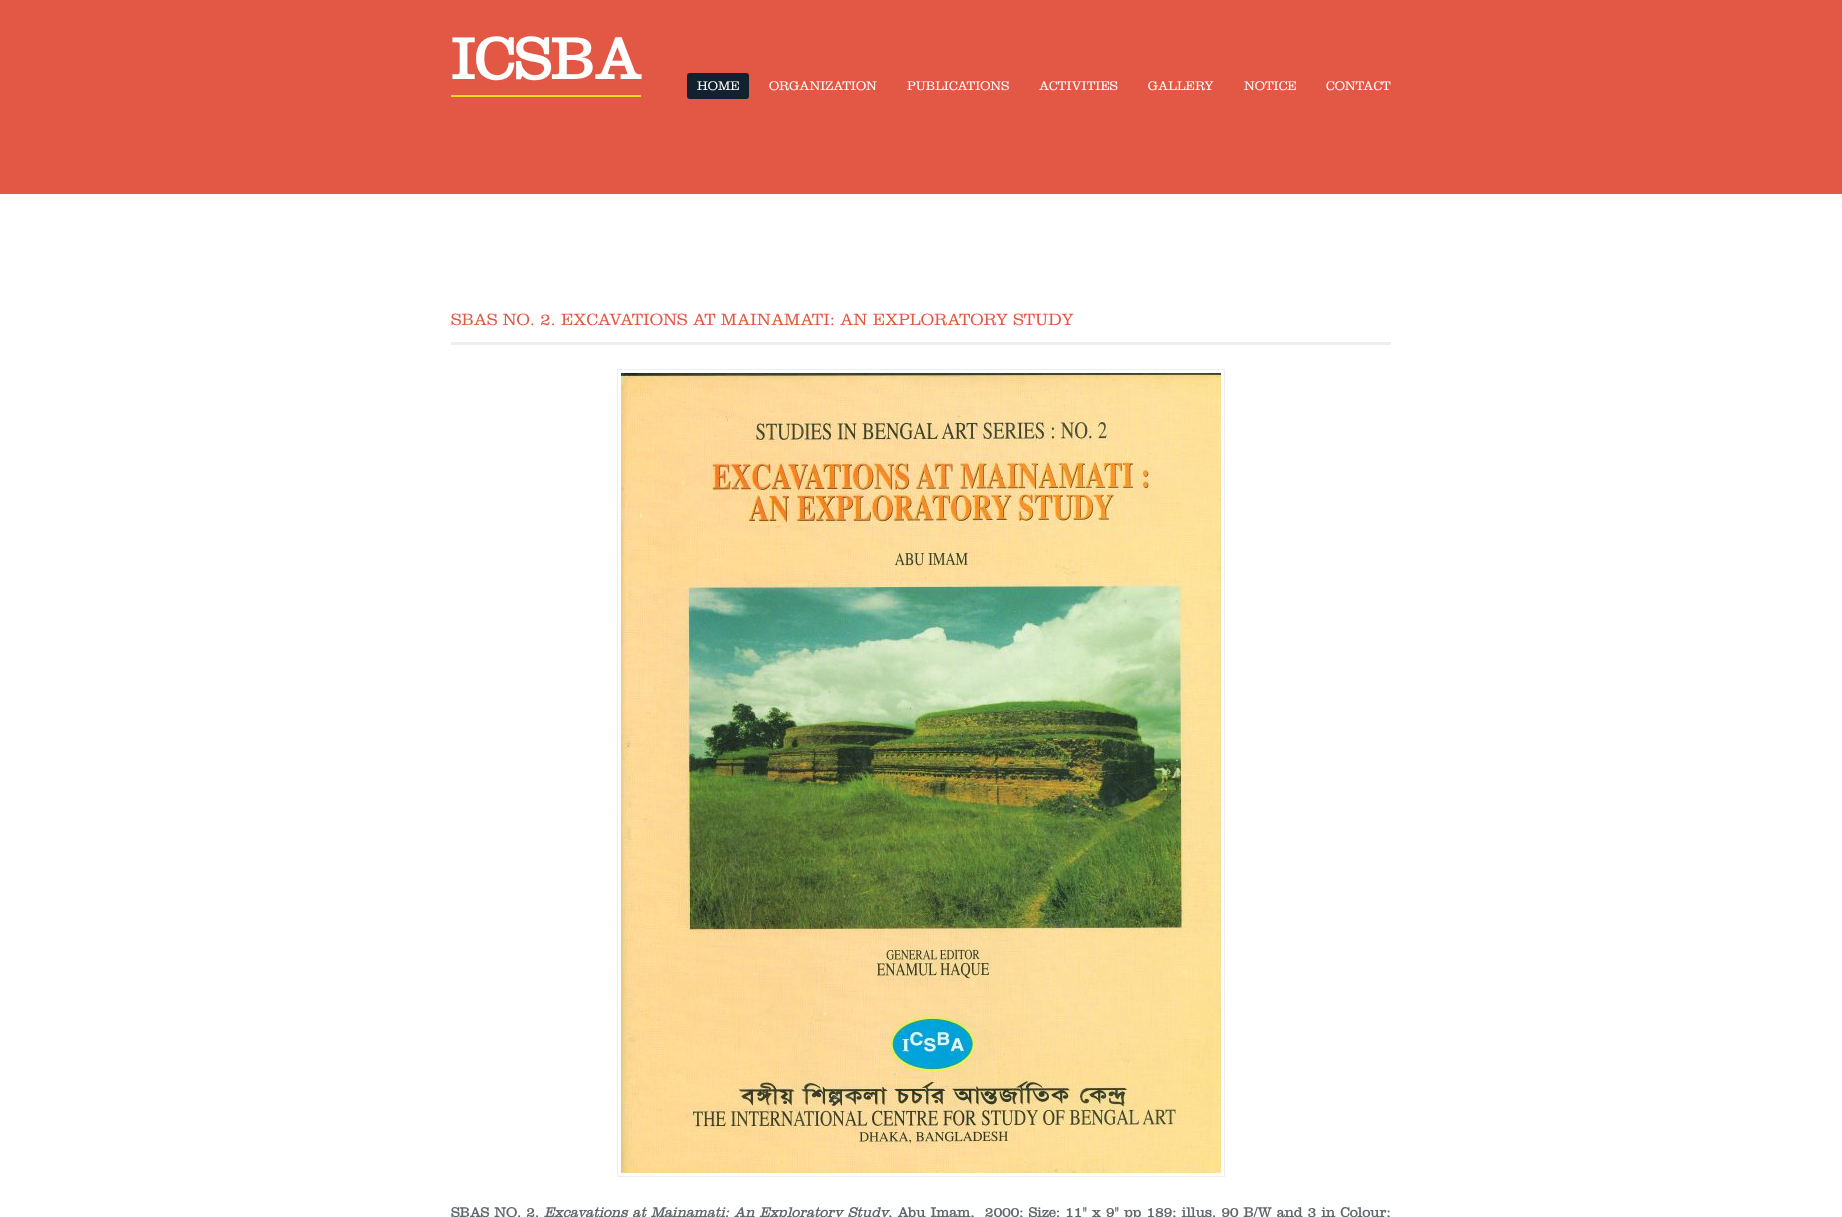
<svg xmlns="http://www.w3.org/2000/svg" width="1842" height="1217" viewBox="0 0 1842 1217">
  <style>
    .t1 { font: bold 60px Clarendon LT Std; fill: #fff; }
    .t2 { font: 300 13px Clarendon LT Std; fill: #fff; }
    .t3 { font: 300 17px Clarendon LT Std; fill: #e35845; }
    .t4 { font: bold 14px Clarendon LT Std; fill: #62676d; }
    .t5 { font: italic bold 14px Clarendon LT Std; fill: #62676d; }
  </style>
  <rect width="100%" height="100%" fill="#e35845"/>
  <text x="451" y="79" class="t1">ICSBA</text>
  <rect x="451" y="95" width="190" height="2" fill="#ebdf1b"/>
  <rect x="687" y="73" width="62" height="26" rx="3" fill="#12212f"/>
  <text x="697" y="90" class="t2">HOME</text>
  <text x="769" y="90" class="t2">ORGANIZATION</text>
  <text x="907" y="90" class="t2">PUBLICATIONS</text>
  <text x="1039" y="90" class="t2">ACTIVITIES</text>
  <text x="1148" y="90" class="t2">GALLERY</text>
  <text x="1244" y="90" class="t2">NOTICE</text>
  <text x="1326" y="90" class="t2">CONTACT</text>
  <rect x="0" y="194" width="1842" height="1023" fill="#fff"/>
  <rect x="451" y="342" width="940" height="3" fill="#eee"/>
  <text x="451" y="325" class="t3">SBAS NO. 2. EXCAVATIONS AT MAINAMATI: AN EXPLORATORY STUDY</text>
  <rect x="617.5" y="369.5" width="607" height="807" fill="none" stroke="#eee"/>
  <image x="621" y="373" width="600" height="800" href="images/1.png"/>
  <text x="451" y="1217" word-spacing="0.9" class="t4">SBAS NO. 2.</text>
  <text x="544" y="1217" word-spacing="0.9" class="t5">Excavations at Mainamati: An Exploratory Study</text>
  <text x="888" y="1217" word-spacing="0.9" class="t4" xml:space="preserve">, Abu Imam,  2000; Size: 11" x 9" pp 189; illus. 90 B/W and 3 in Colour;</text>
</svg>
